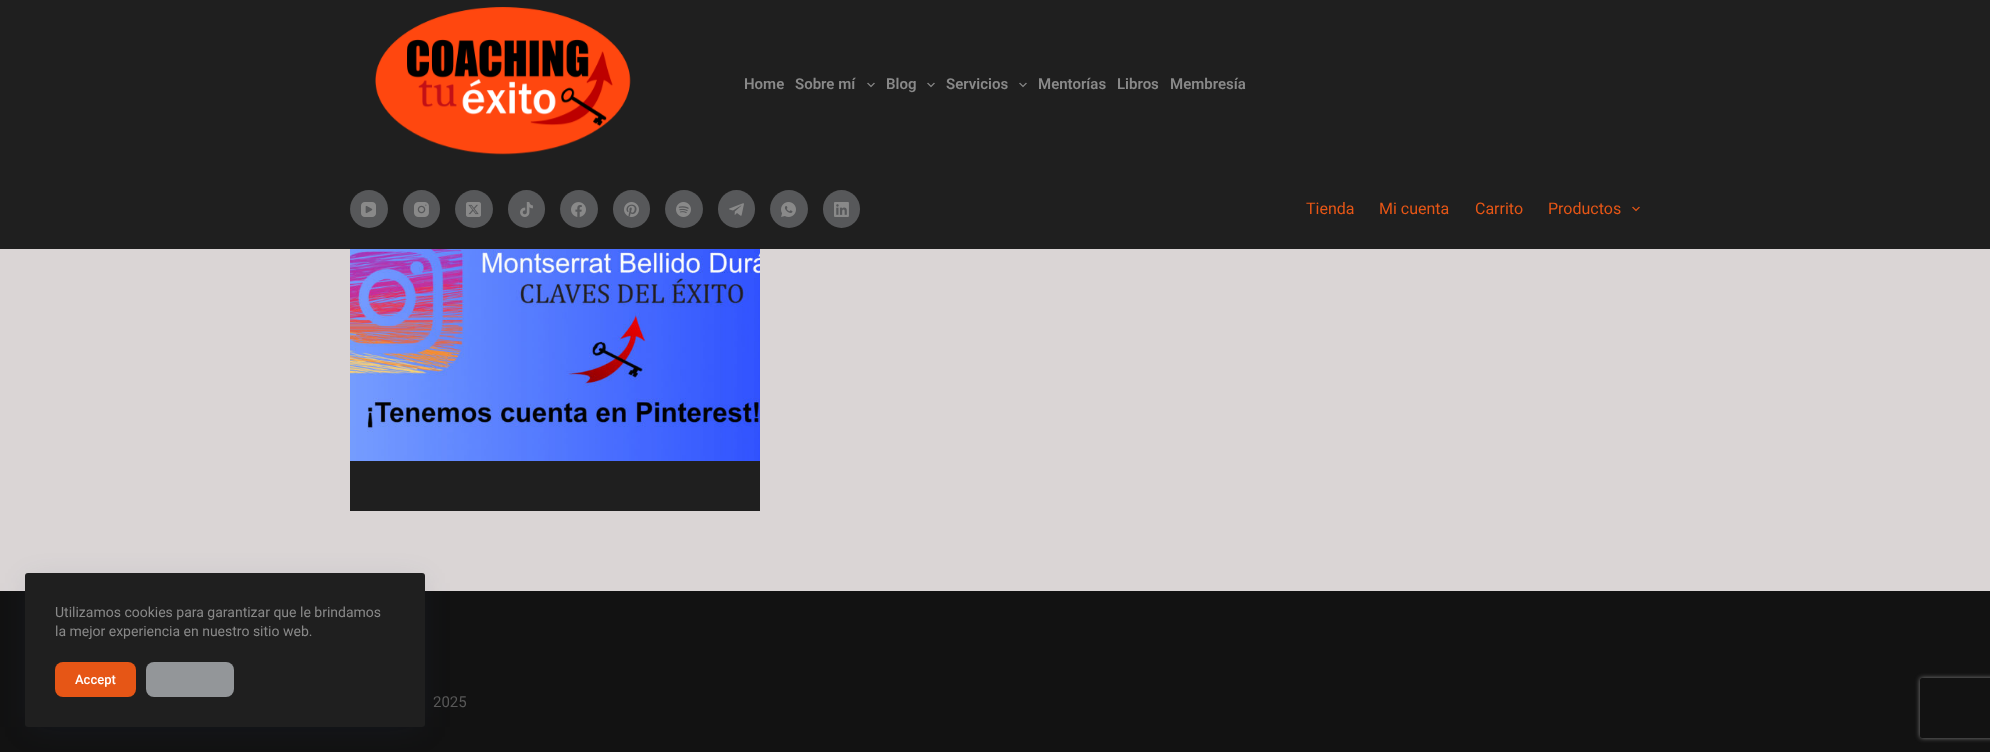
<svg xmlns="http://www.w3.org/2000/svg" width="1990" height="752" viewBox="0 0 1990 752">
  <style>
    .t1 { font: 14px Roboto; fill: #898989; }
    .t2 { font: 500 13px Roboto; fill: #fff; }
    .t3 { font: 600 15px Roboto; fill: #898989; }
    .t4 { font: 16px Roboto; fill: #e65616; }
    .t5 { font: 15px Roboto; fill: #585858; }
  </style>
  <defs>
    <clipPath id="clip1"><path d="M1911 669H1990V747H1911ZM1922 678H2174C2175 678 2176 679 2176 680V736C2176 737 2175 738 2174 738H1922C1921 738 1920 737 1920 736V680C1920 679 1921 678 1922 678Z" clip-rule="evenodd"/></clipPath>
  </defs>
  <rect width="100%" height="100%" fill="#121212"/>
  <rect x="0" y="249" width="1990" height="342" fill="#dad5d5"/>
  <rect x="30" y="583" width="390" height="144" fill="#22386526" filter="blur(15px)"/>
  <rect x="25" y="573" width="400" height="154" rx="3" fill="#1f1f1f"/>
  <text x="55" y="617" class="t1">Utilizamos cookies para garantizar que le brindamos</text>
  <text x="55" y="636" class="t1">la mejor experiencia en nuestro sitio web.</text>
  <rect x="55" y="662" width="81" height="35" rx="8" fill="#e65616"/>
  <text x="75" y="684" class="t2">Accept</text>
  <rect x="146" y="662" width="88" height="35" rx="8" fill="#939699"/>
  <rect x="0" y="0" width="1990" height="249" fill="#1f1f1f"/>
  <image x="375" y="7" width="256" height="148" href="images/1.png"/>
  <text x="744" y="89" class="t3">Home</text>
  <text x="795" y="89" class="t3">Sobre mí</text>
  <image x="867" y="82" width="8" height="6" href="images/2.png"/>
  <text x="886" y="89" class="t3">Blog</text>
  <image x="927" y="82" width="8" height="6" href="images/2.png"/>
  <text x="946" y="89" class="t3">Servicios</text>
  <image x="1019" y="82" width="8" height="6" href="images/2.png"/>
  <text x="1038" y="89" class="t3">Mentorías</text>
  <text x="1117" y="89" class="t3">Libros</text>
  <text x="1170" y="89" class="t3">Membresía</text>
  <circle cx="369" cy="209" r="19" fill="#57585a"/>
  <image x="361" y="202" width="15" height="15" href="images/3.png"/>
  <rect x="403" y="190" width="37" height="38" rx="18.5" fill="#57585a"/>
  <image x="414" y="202" width="15" height="15" href="images/4.png"/>
  <circle cx="474" cy="209" r="19" fill="#57585a"/>
  <image x="466" y="202" width="15" height="15" href="images/5.png"/>
  <rect x="508" y="190" width="37" height="38" rx="18.5" fill="#57585a"/>
  <image x="520" y="202" width="13" height="15" href="images/6.png"/>
  <circle cx="579" cy="209" r="19" fill="#57585a"/>
  <image x="571" y="202" width="15" height="15" href="images/7.png"/>
  <rect x="613" y="190" width="37" height="38" rx="18.5" fill="#57585a"/>
  <image x="624" y="202" width="15" height="15" href="images/8.png"/>
  <circle cx="684" cy="209" r="19" fill="#57585a"/>
  <image x="676" y="202" width="15" height="15" href="images/9.png"/>
  <rect x="718" y="190" width="37" height="38" rx="18.5" fill="#57585a"/>
  <image x="729" y="203" width="15" height="13" href="images/10.png"/>
  <circle cx="789" cy="209" r="19" fill="#57585a"/>
  <image x="781" y="202" width="15" height="15" href="images/11.png"/>
  <rect x="823" y="190" width="37" height="38" rx="18.5" fill="#57585a"/>
  <image x="834" y="202" width="15" height="15" href="images/12.png"/>
  <text x="1306" y="214" class="t4">Tienda</text>
  <text x="1379" y="214" class="t4">Mi cuenta</text>
  <text x="1475" y="214" class="t4">Carrito</text>
  <text x="1548" y="214" class="t4">Productos</text>
  <image x="1632" y="206" width="8" height="6" href="images/13.png"/>
  <rect x="350" y="461" width="410" height="50" fill="#1f1f1f"/>
  <image x="350" y="249" width="410" height="212" href="images/14.png"/>
  <text x="433" y="707" class="t5">2025</text>
  <g clip-path="url(#clip1)">
    <rect x="1920" y="678" width="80" height="60" rx="2" fill="#808080" filter="blur(2.5px)"/>
  </g>
</svg>
